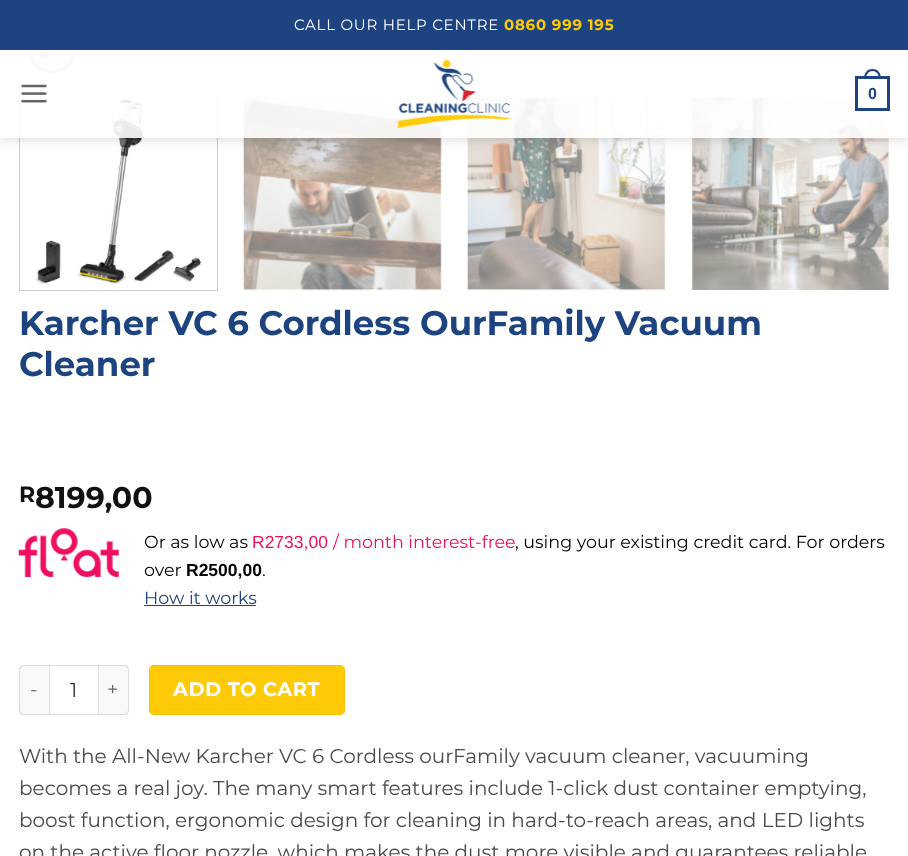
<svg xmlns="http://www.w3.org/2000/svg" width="908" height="856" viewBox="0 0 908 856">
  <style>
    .t1 { font: 15px Montserrat; letter-spacing: 0.75px; fill: #fff; }
    .t2 { font: bold 15px Montserrat; letter-spacing: 0.75px; fill: #ffcb08; }
    .t3 { font: bold 16px Liberation Sans; fill: #1d4481; }
    .t4 { font: bold 34px Montserrat; fill: #1d4481; }
    .t5 { font: bold 22px Montserrat; fill: #111; }
    .t6 { font: bold 30px Montserrat; fill: #111; }
    .t7 { font: 17.5px Montserrat; fill: #000; }
    .t8 { font: 17.5px Liberation Sans; fill: #ef0f60; }
    .t9 { font: 17.5px Montserrat; fill: #ef0f60; }
    .t10 { font: bold 17.5px Liberation Sans; fill: #000; }
    .t11 { font: 17.5px Montserrat; fill: #1d4481; }
    .t12 { font: 19.5px Montserrat; letter-spacing: 0.5px; fill: #666; }
    .t13 { font: 20px Montserrat; fill: #333; }
    .t14 { font: bold 19.5px Montserrat; letter-spacing: 0.5px; fill: #fff; }
    .t15 { font: 20px Montserrat; fill: #4a4a4a; }
  </style>
  <defs>
    <clipPath id="clip1"><path d="M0 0H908V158H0ZM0 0H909V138H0Z" clip-rule="evenodd"/></clipPath>
  </defs>
  <rect width="100%" height="100%" fill="#fff"/>
  <rect x="29.5" y="25.5" width="45" height="46" rx="22.5" fill="none" stroke="#c0c0c0" stroke-width="3"/>
  <image x="40" y="50" width="11" height="9" href="images/3.png"/>
  <rect x="19.5" y="98.5" width="198" height="192" fill="none" stroke="#ccc"/>
  <image x="20" y="98" width="197" height="187" href="images/4.png"/>
  <image x="243" y="98" width="199" height="193" href="images/5.png"/>
  <image x="467" y="98" width="199" height="193" href="images/6.png"/>
  <image x="692" y="98" width="197" height="192" href="images/7.png"/>
  <g clip-path="url(#clip1)">
    <rect x="1" y="1" width="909" height="138" fill="#00000026" filter="blur(6px)"/>
  </g>
  <rect x="0" y="0" width="908" height="50" fill="#1d4481"/>
  <text x="294" y="30" class="t1">CALL OUR HELP CENTRE</text>
  <text x="504" y="30" class="t2">0860 999 195</text>
  <rect x="0" y="50" width="908" height="88" fill="#ffffffe6"/>
  <image x="21" y="84" width="26" height="19" href="images/1.png"/>
  <image x="397" y="59" width="114" height="70" href="images/2.png"/>
  <rect x="856.5" y="77.5" width="32" height="32" fill="none" stroke="#1d4481" stroke-width="3"/>
  <path d="M872.5 69C878.5 69 881 73.5 881 79H864C864 73.5 866.5 69 872.5 69ZM872.5 71C877 71 879 75 879 79H866C866 75 868 71 872.5 71Z" fill="#1d4481" fill-rule="evenodd"/>
  <text x="868" y="99" class="t3">0</text>
  <text x="19" y="335" class="t4">Karcher VC 6 Cordless OurFamily Vacuum</text>
  <text x="19" y="376" class="t4">Cleaner</text>
  <text x="19" y="502" class="t5">R</text>
  <text x="35" y="508" class="t6">8199,00</text>
  <image x="18" y="528" width="101" height="49" href="images/8.png"/>
  <text x="144" y="548" class="t7">Or as low as</text>
  <text x="252" y="548" class="t8">R2733,00</text>
  <text x="333" y="548" class="t9">/ month interest-free</text>
  <text x="515" y="548" class="t7">, using your existing credit card. For orders</text>
  <text x="144" y="576" class="t7">over</text>
  <text x="186" y="576" class="t10">R2500,00</text>
  <text x="262" y="576" class="t7">.</text>
  <text x="144" y="604" class="t11">How it works</text>
  <rect x="144" y="605" width="112" height="1" fill="#1d4481"/>
  <path d="M24 665H49V715H24C21 715 19 713 19 710V670C19 667 21 665 24 665Z" fill="#f9f9f9"/>
  <path d="M24 665H49V715H24C21 715 19 713 19 710V670C19 667 21 665 24 665ZM24 666H49V714H24C22 714 20 712 20 710V670C20 668 22 666 24 666Z" fill="#ddd" fill-rule="evenodd"/>
  <text x="30" y="696" class="t12">-</text>
  <rect x="49.5" y="665.5" width="49" height="49" fill="none" stroke="#ddd"/>
  <text x="70" y="697" class="t13">1</text>
  <path d="M99 665H124C127 665 129 667 129 670V710C129 713 127 715 124 715H99Z" fill="#f9f9f9"/>
  <path d="M99 665H124C127 665 129 667 129 670V710C129 713 127 715 124 715H99ZM99 666H124C126 666 128 668 128 670V710C128 712 126 714 124 714H99Z" fill="#ddd" fill-rule="evenodd"/>
  <text x="107" y="696" class="t12">+</text>
  <rect x="149" y="665" width="196" height="50" rx="5" fill="#ffcb08"/>
  <rect x="149.5" y="665.5" width="195" height="49" fill="none" stroke="#0000000d"/>
  <text x="173" y="696" class="t14">ADD TO CART</text>
  <text x="19" y="763" class="t15">With the All-New Karcher VC 6 Cordless ourFamily vacuum cleaner, vacuuming</text>
  <text x="19" y="795" class="t15">becomes a real joy. The many smart features include 1-click dust container emptying,</text>
  <text x="19" y="827" class="t15">boost function, ergonomic design for cleaning in hard-to-reach areas, and LED lights</text>
  <text x="19" y="859" class="t15">on the active floor nozzle, which makes the dust more visible and guarantees reliable</text>
</svg>
